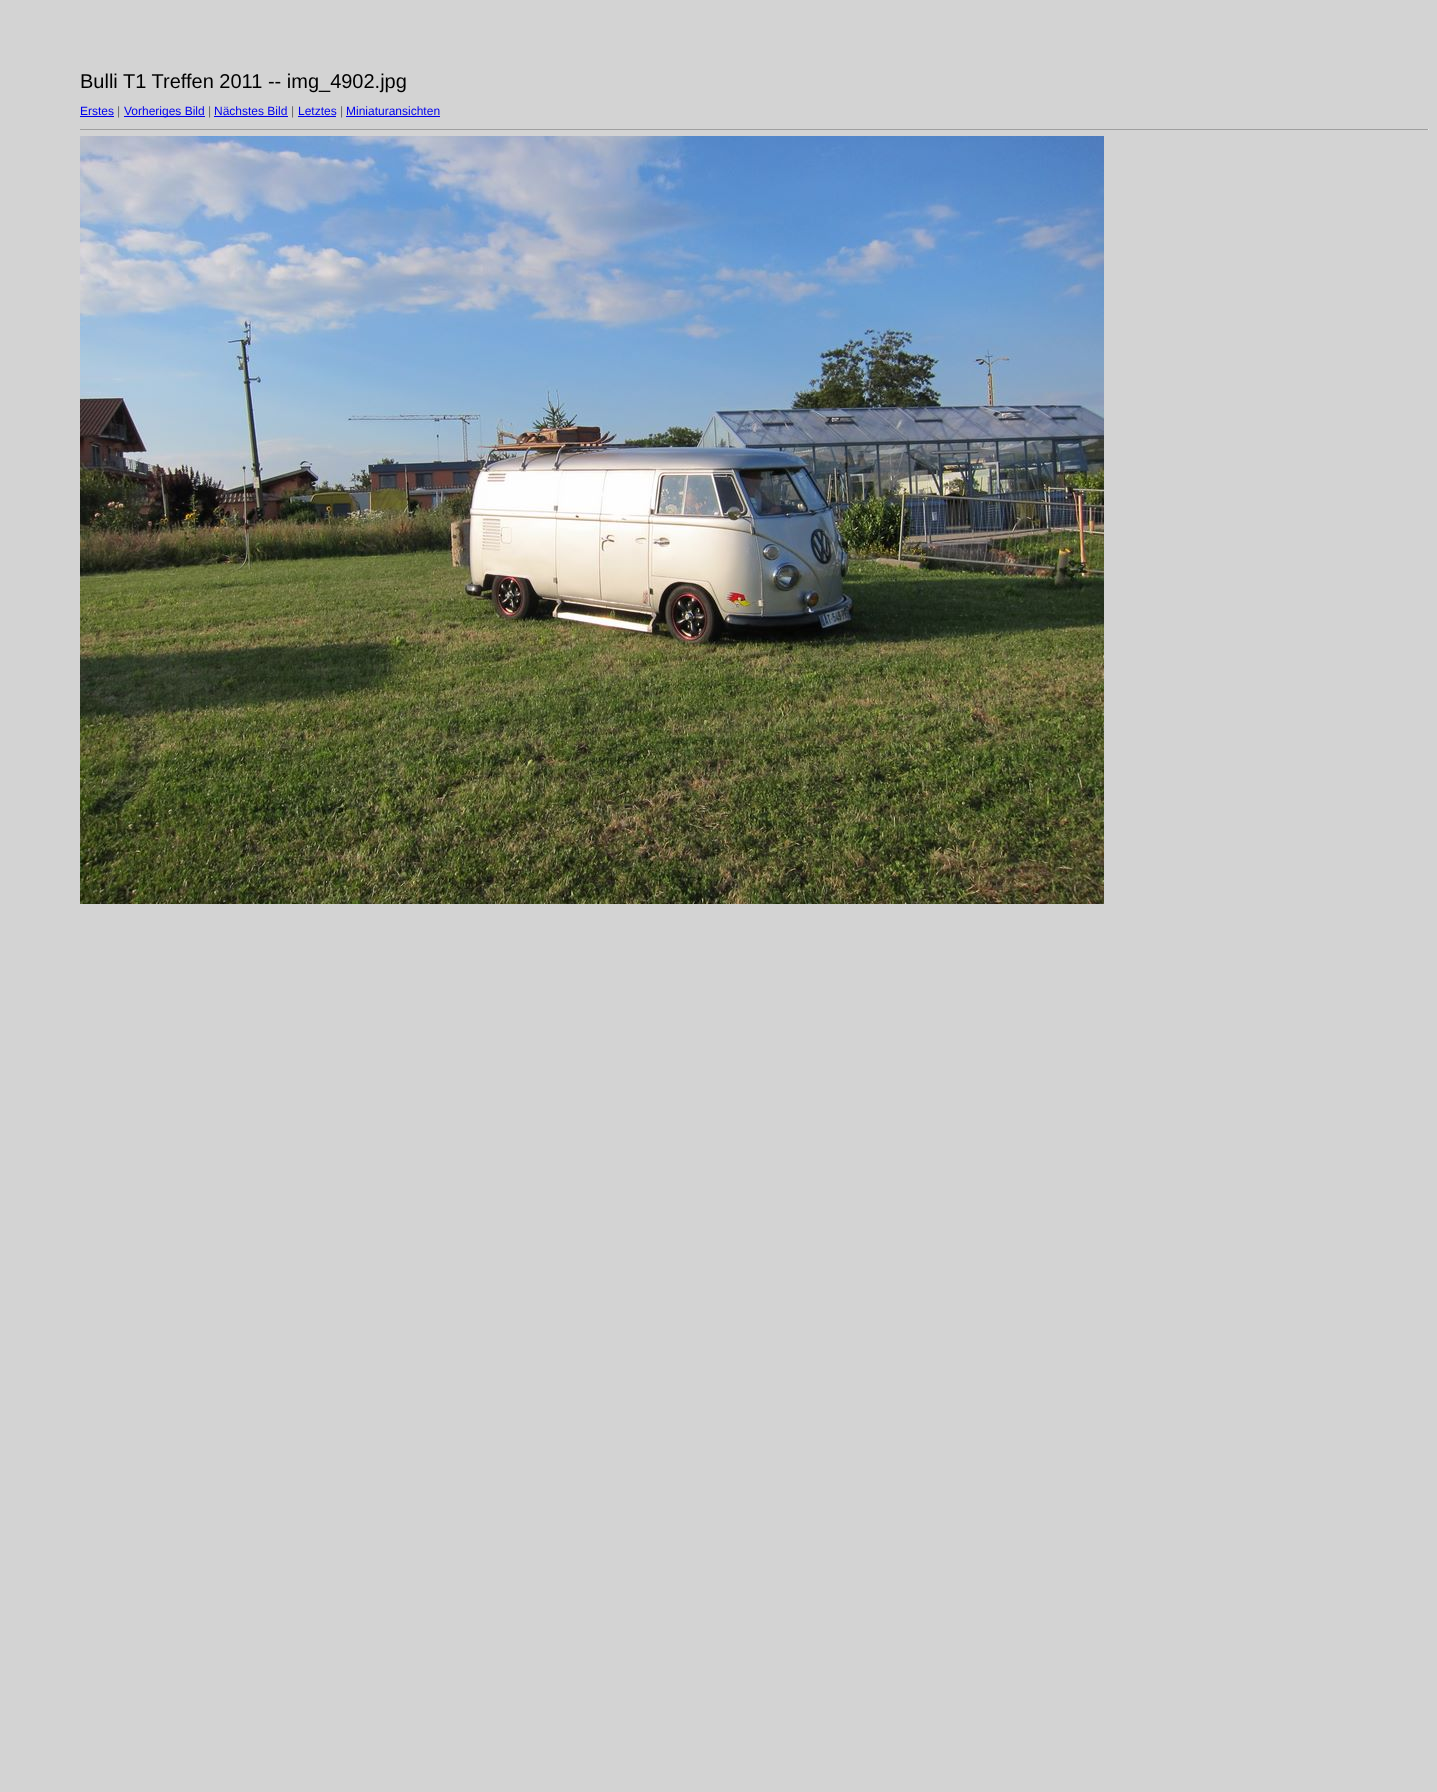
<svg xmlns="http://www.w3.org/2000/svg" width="1437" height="1792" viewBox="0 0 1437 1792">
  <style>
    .t1 { font: 20px Liberation Sans; fill: #000; }
    .t2 { font: 12px Liberation Sans; fill: #00e; }
    .t3 { font: 12px Liberation Sans; fill: #666; }
  </style>
  <rect width="100%" height="100%" fill="#d3d3d3"/>
  <text x="80" y="88" class="t1">Bulli T1 Treffen 2011 -- img_4902.jpg</text>
  <text x="80" y="115" class="t2">Erstes</text>
  <rect x="80" y="116" width="34" height="1" fill="#00e"/>
  <text x="117" y="115" class="t3">|</text>
  <rect x="124" y="116" width="81" height="1" fill="#00e"/>
  <text x="124" y="115" class="t2">Vorheriges Bild</text>
  <text x="208" y="115" class="t3">|</text>
  <text x="214" y="115" class="t2">Nächstes Bild</text>
  <rect x="214" y="116" width="74" height="1" fill="#00e"/>
  <text x="291" y="115" class="t3">|</text>
  <text x="298" y="115" class="t2">Letztes</text>
  <rect x="298" y="116" width="38" height="1" fill="#00e"/>
  <text x="340" y="115" class="t3">|</text>
  <text x="346" y="115" class="t2">Miniaturansichten</text>
  <rect x="346" y="116" width="94" height="1" fill="#00e"/>
  <rect x="80" y="129" width="1349" height="1" fill="#9f9f9f"/>
  <rect x="1428" y="129" width="1" height="1" fill="#eee"/>
  <image x="80" y="136" width="1024" height="768" href="images/1.png"/>
</svg>
